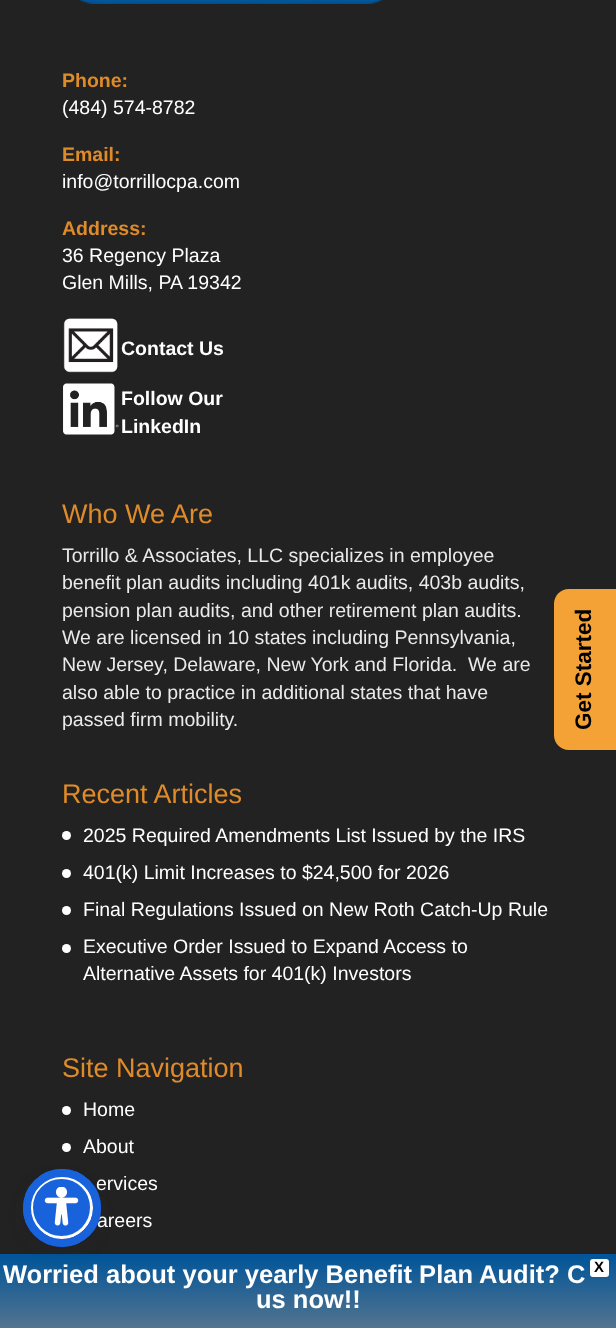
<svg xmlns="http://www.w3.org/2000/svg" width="616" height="1328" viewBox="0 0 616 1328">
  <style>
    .t1 { font: bold 19.5px Liberation Sans; fill: #e08b2a; }
    .t2 { font: 19.5px Liberation Sans; fill: #fff; }
    .t3 { font: bold 19.5px Liberation Sans; fill: #fff; }
    .t4 { font: 27px Liberation Sans; fill: #e08b2a; }
    .t5 { font: 19.5px Liberation Sans; fill: #eaeaea; }
    .t6 { font: bold 22.5px Liberation Sans; fill: #000; }
    .t7 { font: bold 25.5px Liberation Sans; fill: #fff; }
    .t8 { font: bold 15px Liberation Sans; fill: #000; }
  </style>
  <defs>
    <linearGradient id="g1" gradientUnits="userSpaceOnUse" x1="308" y1="1254" x2="308" y2="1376"><stop offset="0" stop-color="#005499"/><stop offset="1" stop-color="#888"/></linearGradient>
  </defs>
  <rect width="100%" height="100%" fill="#222"/>
  <image x="79" y="0" width="304" height="4" href="images/1.png"/>
  <text x="62" y="87" class="t1">Phone:</text>
  <text x="62" y="114" class="t2">(484) 574-8782</text>
  <text x="62" y="161" class="t1">Email:</text>
  <text x="62" y="188" class="t2">info@torrillocpa.com</text>
  <text x="62" y="235" class="t1">Address:</text>
  <text x="62" y="262" class="t2">36 Regency Plaza</text>
  <text x="62" y="289" class="t2">Glen Mills, PA 19342</text>
  <image x="63" y="318" width="55" height="55" href="images/2.png"/>
  <text x="121" y="355" class="t3">Contact Us</text>
  <image x="63" y="383" width="56" height="52" href="images/3.png"/>
  <text x="121" y="405" class="t3">Follow Our</text>
  <text x="121" y="433" class="t3">LinkedIn</text>
  <text x="62" y="523" class="t4">Who We Are</text>
  <text x="62" y="562" class="t5">Torrillo &amp; Associates, LLC specializes in employee</text>
  <text x="62" y="589" class="t5">benefit plan audits including 401k audits, 403b audits,</text>
  <text x="62" y="617" class="t5">pension plan audits, and other retirement plan audits.</text>
  <text x="62" y="644" class="t5">We are licensed in 10 states including Pennsylvania,</text>
  <text x="62" y="671" class="t5" xml:space="preserve">New Jersey, Delaware, New York and Florida.  We are</text>
  <text x="62" y="699" class="t5">also able to practice in additional states that have</text>
  <text x="62" y="726" class="t5">passed firm mobility.</text>
  <text x="62" y="803" class="t4">Recent Articles</text>
  <circle cx="66.5" cy="835.5" r="4.5" fill="#fff"/>
  <text x="83" y="842" class="t2">2025 Required Amendments List Issued by the IRS</text>
  <circle cx="66.5" cy="873.5" r="4.5" fill="#fff"/>
  <text x="83" y="879" class="t2">401(k) Limit Increases to $24,500 for 2026</text>
  <circle cx="66.5" cy="910.5" r="4.5" fill="#fff"/>
  <text x="83" y="916" class="t2">Final Regulations Issued on New Roth Catch-Up Rule</text>
  <circle cx="66.5" cy="948.5" r="4.5" fill="#fff"/>
  <text x="83" y="953" class="t2">Executive Order Issued to Expand Access to</text>
  <text x="83" y="980" class="t2">Alternative Assets for 401(k) Investors</text>
  <text x="62" y="1077" class="t4">Site Navigation</text>
  <circle cx="66.5" cy="1110.5" r="4.5" fill="#fff"/>
  <text x="83" y="1116" class="t2">Home</text>
  <circle cx="66.5" cy="1147.5" r="4.5" fill="#fff"/>
  <text x="83" y="1153" class="t2">About</text>
  <text x="96" y="1190" class="t2">ervices</text>
  <text x="97" y="1227" class="t2">areers</text>
  <path d="M554 735V604C554 596 560 589 569 589H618V750H569C560 750 554 743 554 735Z" fill="#f4a235"/>
  <text x="591" y="730" transform="rotate(-90 591 730)" class="t6">Get Started</text>
  <rect x="30" y="1179" width="63" height="63" rx="31.5" fill="#5d649433" filter="blur(3px)"/>
  <circle cx="61.5" cy="1207.5" r="30" fill="none" stroke="#fff" stroke-width="3"/>
  <circle cx="62" cy="1208" r="35" fill="none" stroke="#1863dc" stroke-width="8"/>
  <rect x="30" y="1179" width="63" height="63" rx="31.5" fill="#5d649433" filter="blur(3px)"/>
  <rect x="0" y="1254" width="616" height="74" fill="url(#g1)"/>
  <rect x="30" y="1184" width="63" height="63" rx="31.5" fill="#252c6126" filter="blur(11px)"/>
  <circle cx="61.5" cy="1207.5" r="30" fill="#1863dc" stroke="#fff" stroke-width="3"/>
  <circle cx="62" cy="1208" r="35" fill="none" stroke="#1863dc" stroke-width="8"/>
  <image x="44" y="1187" width="35" height="39" href="images/4.png"/>
  <text x="3" y="1283" class="t7">Worried about your yearly Benefit Plan Audit? C</text>
  <text x="256" y="1308" class="t7">us now!!</text>
  <rect x="591" y="1260" width="17" height="16" rx="2" fill="#fff" stroke="#fff" stroke-width="2"/>
  <text x="594" y="1272" class="t8">X</text>
</svg>
